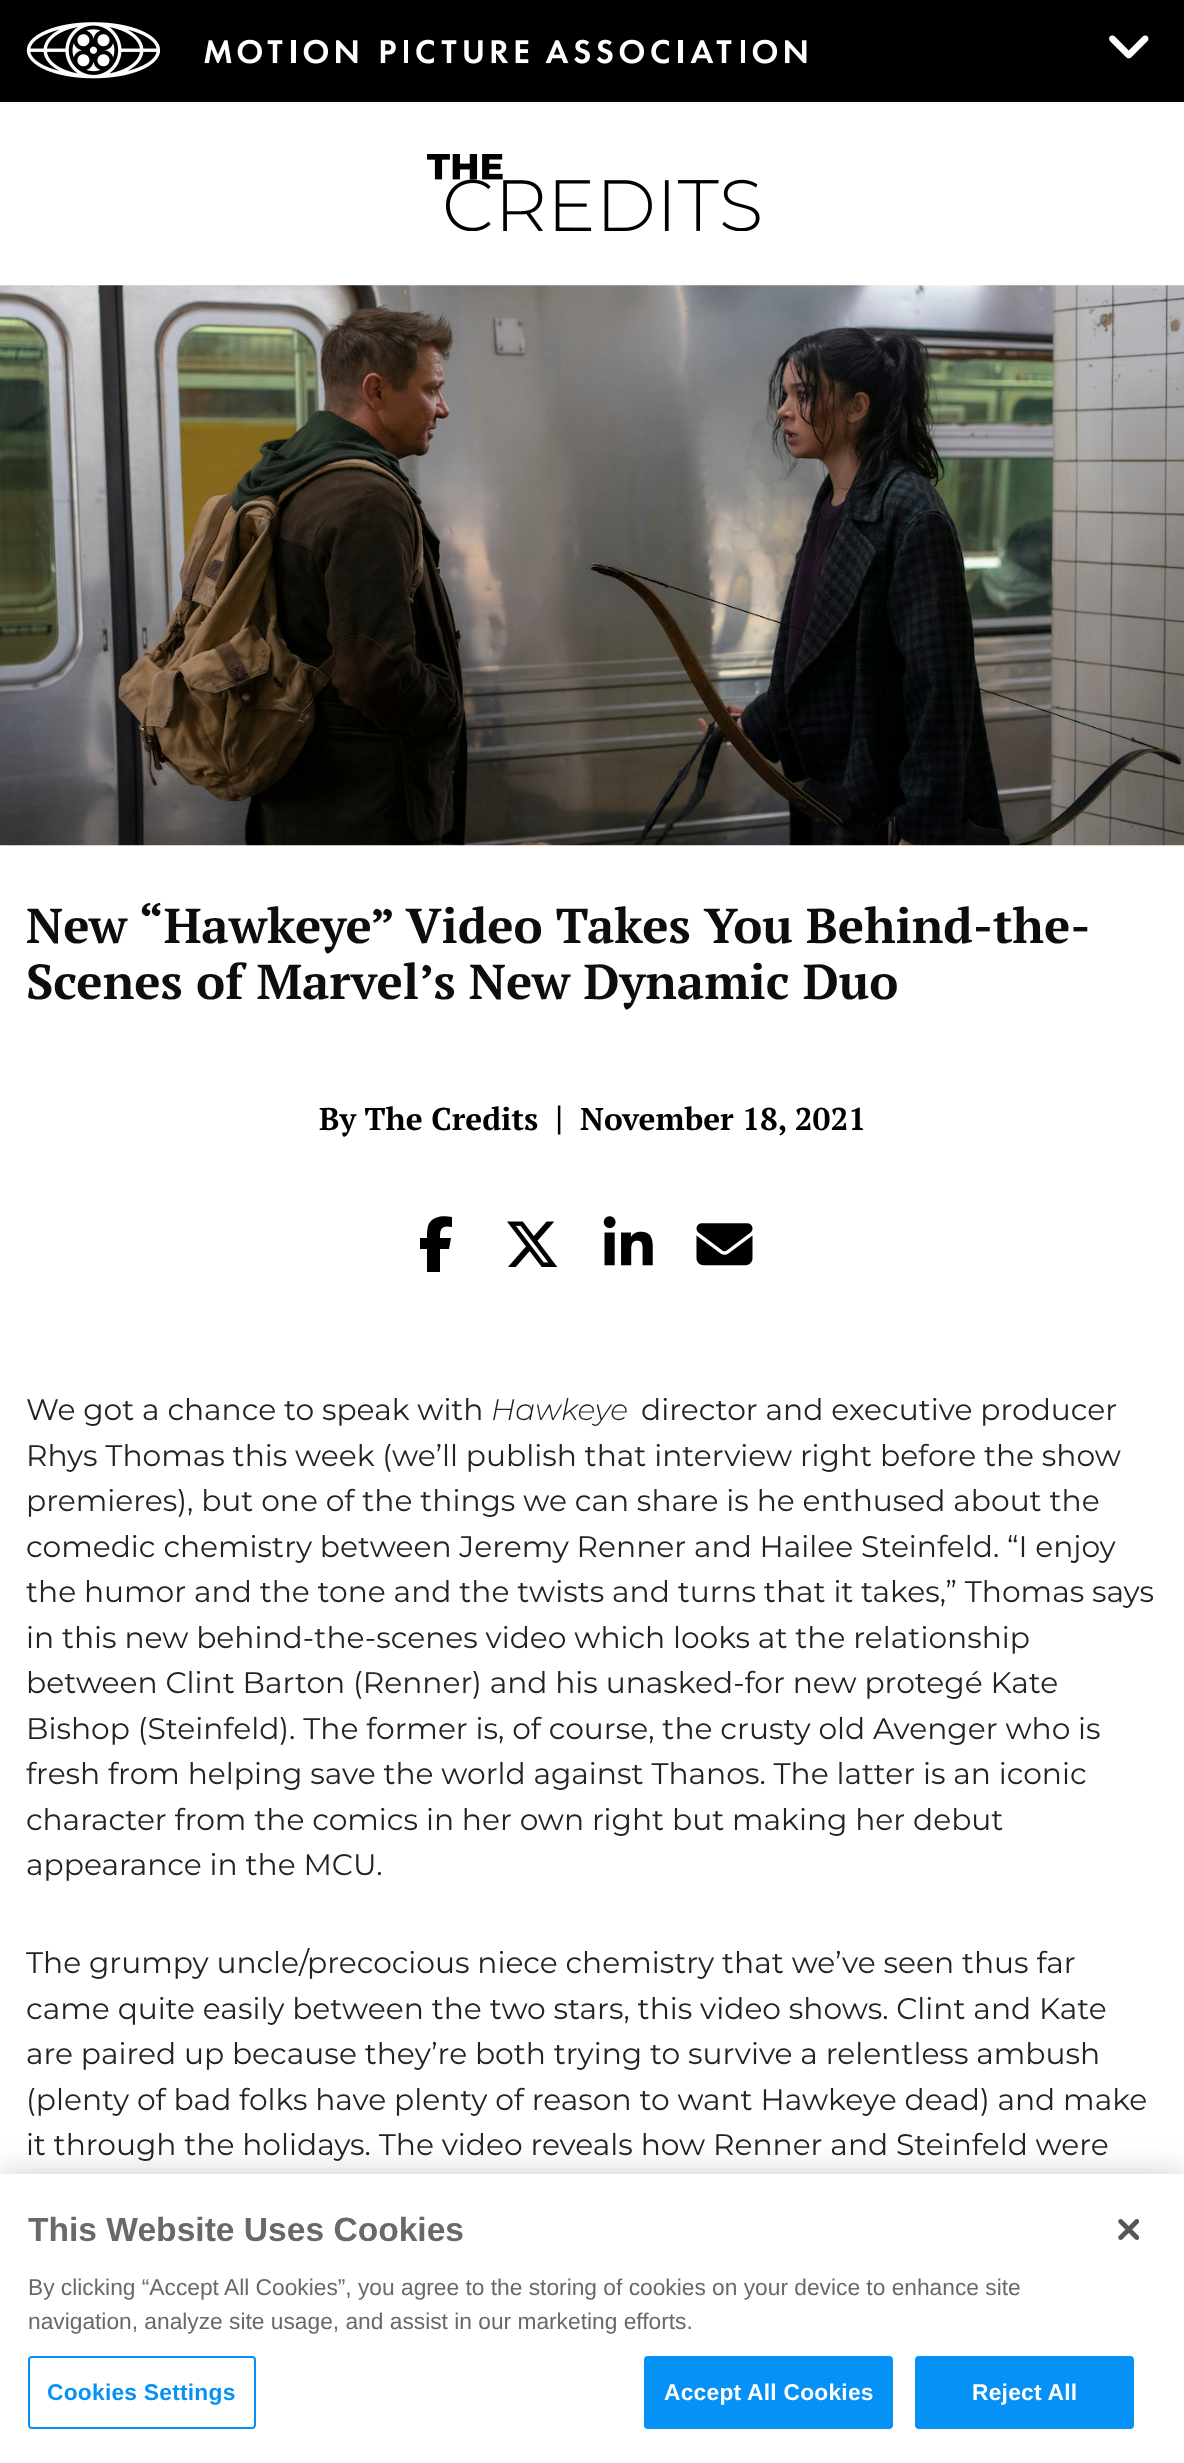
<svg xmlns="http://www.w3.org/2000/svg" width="1184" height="2463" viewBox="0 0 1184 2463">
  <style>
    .t1 { font: bold 49px PT Serif; fill: #0d0d0e; }
    .t2 { font: bold 31.5px PT Serif; fill: #000; }
    .t3 { font: bold 35px PT Serif; fill: #000; }
    .t4 { font: 29.75px Montserrat; fill: #232323; }
    .t5 { font: italic 300 29.75px Montserrat; fill: #232323; }
    .t6 { font: bold 33.6px Liberation Sans; fill: #696969; }
    .t7 { font: 22.75px Liberation Sans; fill: #696969; }
    .t8 { font: bold 22.75px Liberation Sans; letter-spacing: 0.25px; fill: #0591f5; }
    .t9 { font: bold 22.75px Liberation Sans; letter-spacing: 0.25px; fill: #fff; }
  </style>
  <rect width="100%" height="100%" fill="#fff"/>
  <rect x="0" y="0" width="1184" height="102" fill="#000"/>
  <image x="26" y="22" width="781" height="57" href="images/1.png"/>
  <image x="1109" y="35" width="40" height="24" href="images/2.png"/>
  <image x="427" y="154" width="333" height="77" href="images/3.png"/>
  <image x="0" y="285" width="1184" height="561" href="images/4.png"/>
  <text x="26" y="943" class="t1">New “Hawkeye” Video Takes You Behind-the-</text>
  <text x="26" y="999" class="t1">Scenes of Marvel’s New Dynamic Duo</text>
  <text x="319" y="1130" class="t2">By The Credits</text>
  <text x="555" y="1130" class="t3">|</text>
  <text x="580" y="1130" class="t2">November 18, 2021</text>
  <path d="M427 1249V1272V1249V1272H440V1249H449L451 1238H440C440 1229 441 1225 452 1227V1217C443 1215 431 1216 428 1226C427 1230 427 1234 427 1238H420V1249Z" fill="#000"/>
  <image x="507" y="1221" width="51" height="46" href="images/5.png"/>
  <image x="603" y="1216" width="50" height="50" href="images/6.png"/>
  <image x="696" y="1223" width="57" height="43" href="images/7.png"/>
  <text x="26" y="1420" class="t4">We got a chance to speak with</text>
  <text x="491" y="1420" class="t5">Hawkeye</text>
  <text x="641" y="1420" class="t4">director and executive producer</text>
  <text x="26" y="1466" class="t4">Rhys Thomas this week (we’ll publish that interview right before the show</text>
  <text x="26" y="1511" class="t4">premieres), but one of the things we can share is he enthused about the</text>
  <text x="26" y="1557" class="t4">comedic chemistry between Jeremy Renner and Hailee Steinfeld. “I enjoy</text>
  <text x="26" y="1602" class="t4">the humor and the tone and the twists and turns that it takes,” Thomas says</text>
  <text x="26" y="1648" class="t4">in this new behind-the-scenes video which looks at the relationship</text>
  <text x="26" y="1693" class="t4">between Clint Barton (Renner) and his unasked-for new protegé Kate</text>
  <text x="26" y="1739" class="t4">Bishop (Steinfeld). The former is, of course, the crusty old Avenger who is</text>
  <text x="26" y="1784" class="t4">fresh from helping save the world against Thanos. The latter is an iconic</text>
  <text x="26" y="1830" class="t4">character from the comics in her own right but making her debut</text>
  <text x="26" y="1875" class="t4">appearance in the MCU.</text>
  <text x="26" y="1973" class="t4">The grumpy uncle/precocious niece chemistry that we’ve seen thus far</text>
  <text x="26" y="2019" class="t4">came quite easily between the two stars, this video shows. Clint and Kate</text>
  <text x="26" y="2064" class="t4">are paired up because they’re both trying to survive a relentless ambush</text>
  <text x="26" y="2110" class="t4">(plenty of bad folks have plenty of reason to want Hawkeye dead) and make</text>
  <text x="26" y="2155" class="t4">it through the holidays. The video reveals how Renner and Steinfeld were</text>
  <rect x="0" y="2174" width="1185" height="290" fill="#00000033" filter="blur(16px)"/>
  <rect x="0" y="2174" width="1184" height="289" fill="#fff"/>
  <text x="28" y="2241" class="t6">This Website Uses Cookies</text>
  <text x="28" y="2295" class="t7">By clicking “Accept All Cookies”, you agree to the storing of cookies on your device to enhance site</text>
  <text x="28" y="2329" class="t7">navigation, analyze site usage, and assist in our marketing efforts.</text>
  <rect x="29" y="2357" width="226" height="71" rx="3" fill="none" stroke="#0591f5" stroke-width="2"/>
  <text x="47" y="2400" class="t8">Cookies Settings</text>
  <rect x="645" y="2357" width="247" height="71" rx="3" fill="#0591f5" stroke="#0591f5" stroke-width="2"/>
  <text x="664" y="2400" class="t9">Accept All Cookies</text>
  <rect x="916" y="2357" width="217" height="71" rx="3" fill="#0591f5" stroke="#0591f5" stroke-width="2"/>
  <text x="972" y="2400" class="t9">Reject All</text>
  <image x="1118" y="2219" width="21" height="21" href="images/8.png"/>
</svg>
